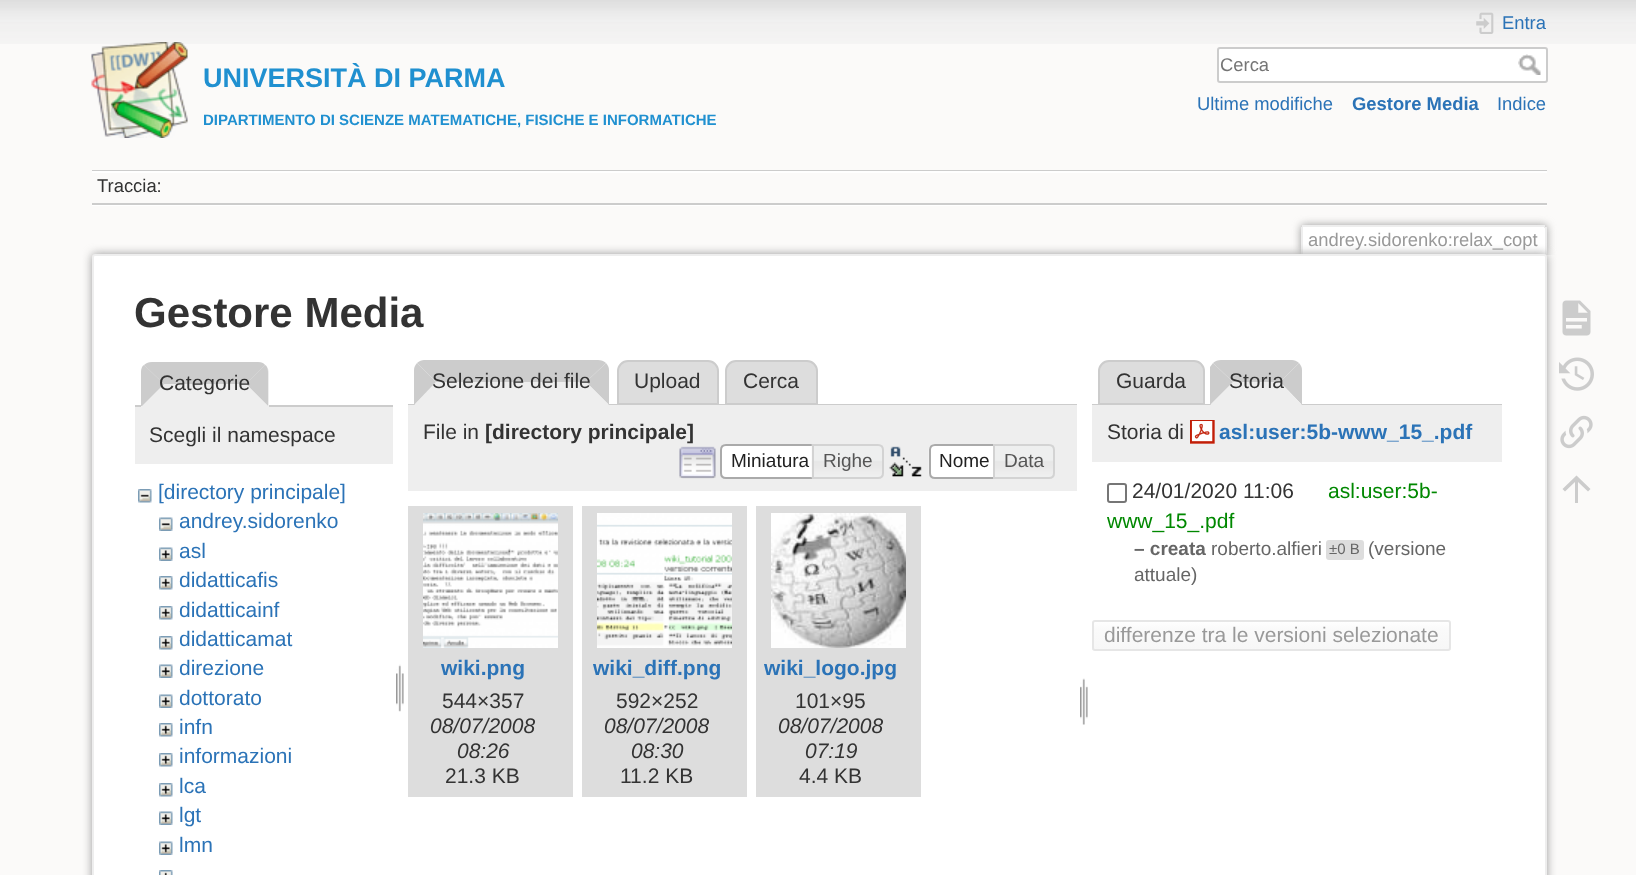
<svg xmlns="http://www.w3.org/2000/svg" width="1636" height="875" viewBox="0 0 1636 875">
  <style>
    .t1 { font: bold 27px Liberation Sans; fill: #2090d0; }
    .t2 { font: bold 15px Liberation Sans; fill: #2090d0; }
    .t3 { font: 18.4px Liberation Sans; fill: #2b73b7; }
    .t4 { font: 18.4px Liberation Sans; fill: #757575; }
    .t5 { font: bold 18.4px Liberation Sans; fill: #2b73b7; }
    .t6 { font: 18.4px Liberation Sans; fill: #333; }
    .t7 { font: 18.4px Liberation Sans; fill: #999; }
    .t8 { font: bold 42px Liberation Sans; fill: #333; }
    .t9 { font: 21px Liberation Sans; fill: #333; }
    .t10 { font: 21px Liberation Sans; fill: #2b73b7; }
    .t11 { font: bold 21px Liberation Sans; fill: #333; }
    .t12 { font: 19px Liberation Sans; fill: #212121; }
    .t13 { font: 19px Liberation Sans; fill: #555; }
    .t14 { font: bold 21px Liberation Sans; fill: #2b73b7; }
    .t15 { font: italic 21px Liberation Sans; fill: #333; }
    .t16 { font: 21px Liberation Sans; fill: #080; }
    .t17 { font: bold 19px Liberation Sans; fill: #666; }
    .t18 { font: 19px Liberation Sans; fill: #666; }
    .t19 { font: 15px Liberation Sans; fill: #666; }
    .t20 { font: 21px Liberation Sans; fill: #999; }
  </style>
  <defs>
    <clipPath id="clip1"><rect x="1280" y="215" width="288" height="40"/></clipPath>
    <clipPath id="clip2"><rect x="1092" y="620" width="359" height="31" rx="3"/></clipPath>
    <linearGradient id="g1" gradientUnits="userSpaceOnUse" x1="1271" y1="621" x2="1271" y2="650"><stop offset="0" stop-color="#fff"/><stop offset="0.3" stop-color="#fafafa"/><stop offset="0.99" stop-color="#f7f7f7"/><stop offset="0.99" stop-color="#e6e6e6"/></linearGradient>
  </defs>
  <rect width="100%" height="100%" fill="#fbfaf9"/>
  <image x="0" y="0" width="1636" height="44" href="images/1.png"/>
  <image x="91" y="42" width="97" height="96" href="images/2.png"/>
  <text x="203" y="87" class="t1">UNIVERSITÀ DI PARMA</text>
  <text x="203" y="125" class="t2">DIPARTIMENTO DI SCIENZE MATEMATICHE, FISICHE E INFORMATICHE</text>
  <image x="1476" y="12" width="18" height="22" href="images/3.png"/>
  <text x="1502" y="29" class="t3">Entra</text>
  <rect x="1218" y="48" width="329" height="34" rx="2" fill="#fff" stroke="#ccc" stroke-width="2"/>
  <text x="1220" y="71" class="t4">Cerca</text>
  <image x="1518" y="54" width="23" height="21" href="images/4.png"/>
  <text x="1197" y="110" class="t3">Ultime modifiche</text>
  <text x="1352" y="110" class="t5">Gestore Media</text>
  <text x="1497" y="110" class="t3">Indice</text>
  <rect x="92" y="170" width="1455" height="1" fill="#ccc"/>
  <rect x="92" y="205" width="1455" height="1" fill="#fff"/>
  <rect x="92" y="171" width="1455" height="2" fill="#fff"/>
  <rect x="92" y="203" width="1455" height="2" fill="#ccc"/>
  <text x="97" y="192" class="t6">Traccia:</text>
  <g clip-path="url(#clip1)">
    <rect x="1301" y="225" width="246" height="30" rx="3" fill="#999" filter="blur(4.5px)"/>
  </g>
  <path d="M1303.5 227H1543.5C1544.5 227 1545 227.5 1545 228.5V255H1302V228.5C1302 227.5 1302.5 227 1303.5 227Z" fill="#fff"/>
  <rect x="1302" y="225" width="243" height="2" fill="#eee"/>
  <rect x="1545" y="227" width="2" height="28" fill="#eee"/>
  <rect x="1301" y="227" width="2" height="28" fill="#eee"/>
  <text x="1308" y="246" class="t7">andrey.sidorenko:relax_copt</text>
  <rect x="92" y="254" width="1455" height="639" rx="3" fill="#999" filter="blur(5px)"/>
  <rect x="93" y="255" width="1453" height="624" rx="2" fill="#fff" stroke="#eee" stroke-width="2"/>
  <text x="134" y="327" class="t8">Gestore Media</text>
  <rect x="135" y="405" width="258" height="2" fill="#ccc"/>
  <path d="M152 362H258C264 362 269 367 269 373V407H141V373C141 367 146 362 152 362Z" fill="#eee"/>
  <path d="M152 362C149 362 146 363 144 365L164 384H246L265 365C264 363 261 362 258 362Z" fill="#ccc"/>
  <path d="M268 406V372C268 369 267 366 265 365L246 384Z" fill="#ccc"/>
  <path d="M268 406L246 384H164L142 406Z" fill="#eee"/>
  <path d="M141 372C141 369 142 366 144 365L164 384L142 406H141Z" fill="#ccc"/>
  <text x="159" y="390" class="t9">Categorie</text>
  <rect x="135" y="407" width="258" height="57" fill="#eee"/>
  <text x="149" y="442" class="t9">Scegli il namespace</text>
  <image x="138" y="489" width="14" height="14" href="images/5.png"/>
  <text x="158" y="499" class="t10">[directory principale]</text>
  <image x="159" y="517" width="14" height="14" href="images/6.png"/>
  <text x="179" y="528" class="t10">andrey.sidorenko</text>
  <image x="159" y="547" width="14" height="14" href="images/7.png"/>
  <text x="179" y="558" class="t10">asl</text>
  <image x="159" y="576" width="14" height="14" href="images/8.png"/>
  <text x="179" y="587" class="t10">didatticafis</text>
  <image x="159" y="606" width="14" height="14" href="images/8.png"/>
  <text x="179" y="617" class="t10">didatticainf</text>
  <image x="159" y="636" width="14" height="14" href="images/8.png"/>
  <text x="179" y="646" class="t10">didatticamat</text>
  <image x="159" y="664" width="14" height="14" href="images/7.png"/>
  <text x="179" y="675" class="t10">direzione</text>
  <image x="159" y="694" width="14" height="14" href="images/7.png"/>
  <text x="179" y="705" class="t10">dottorato</text>
  <image x="159" y="723" width="14" height="14" href="images/8.png"/>
  <text x="179" y="734" class="t10">infn</text>
  <image x="159" y="753" width="14" height="14" href="images/8.png"/>
  <text x="179" y="763" class="t10">informazioni</text>
  <image x="159" y="783" width="14" height="14" href="images/8.png"/>
  <text x="179" y="793" class="t10">lca</text>
  <image x="159" y="811" width="14" height="14" href="images/7.png"/>
  <text x="179" y="822" class="t10">lgt</text>
  <image x="159" y="841" width="14" height="14" href="images/7.png"/>
  <text x="179" y="852" class="t10">lmn</text>
  <image x="159" y="870" width="14" height="5" href="images/9.png"/>
  <image x="396" y="664" width="8" height="48" href="images/10.png"/>
  <path d="M424 360H598C601 360 604 361 606 363L586 382H436L417 363C419 361 422 360 424 360Z" fill="#ccc"/>
  <path d="M628 361H708C713.5 361 718 365.5 718 371V404H618V371C618 365.5 622.5 361 628 361Z" fill="#ddd" stroke="#ccc" stroke-width="2"/>
  <path d="M736 361H807C812.5 361 817 365.5 817 371V404H726V371C726 365.5 730.5 361 736 361Z" fill="#ddd" stroke="#ccc" stroke-width="2"/>
  <rect x="408" y="404" width="669" height="1" fill="#ccc"/>
  <path d="M606 363L586 382L609 405V370C609 368 608 365 606 363Z" fill="#ccc"/>
  <path d="M609 405L586 382H436L414 405Z" fill="#eee"/>
  <path d="M414 405V370C414 368 415 365 417 363L436 382Z" fill="#ccc"/>
  <text x="432" y="388" class="t9">Selezione dei file</text>
  <text x="634" y="388" class="t9">Upload</text>
  <text x="743" y="388" class="t9">Cerca</text>
  <rect x="408" y="405" width="669" height="86" fill="#eee"/>
  <text x="423" y="439" class="t9">File in</text>
  <text x="485" y="439" class="t11">[directory principale]</text>
  <image x="679" y="446" width="37" height="33" href="images/11.png"/>
  <path d="M726 445H818V478H726C723 478 721 476 721 473V450C721 447 723 445 726 445Z" fill="#fff" stroke="#aaa" stroke-width="2"/>
  <text x="731" y="467" class="t12">Miniatura</text>
  <image x="811" y="444" width="72" height="35" href="images/12.png"/>
  <path d="M813 445H878C881 445 883 447 883 450V473C883 476 881 478 878 478H813Z" fill="none" stroke="#d3d3d3" stroke-width="2"/>
  <text x="823" y="467" class="t13">Righe</text>
  <image x="889" y="446" width="33" height="31" href="images/13.png"/>
  <path d="M935 444H1001V479H935C931.5 479 929 476.5 929 473V450C929 446.5 931.5 444 935 444Z" fill="#fff"/>
  <image x="928" y="444" width="5" height="32" href="images/14.png"/>
  <path d="M935 445H1000V478H935C932 478 930 476 930 473V450C930 447 932 445 935 445Z" fill="none" stroke="#aaa" stroke-width="2"/>
  <text x="939" y="467" class="t12">Nome</text>
  <image x="995" y="444" width="59" height="34" href="images/15.png"/>
  <path d="M994 445H1049C1052 445 1054 447 1054 450V473C1054 476 1052 478 1049 478H994Z" fill="none" stroke="#d3d3d3" stroke-width="2"/>
  <text x="1004" y="467" class="t13">Data</text>
  <rect x="408" y="506" width="165" height="291" fill="#ddd"/>
  <image x="423" y="513" width="135" height="135" href="images/16.png"/>
  <text x="441" y="675" class="t14">wiki.png</text>
  <text x="442" y="708" class="t9">544×357</text>
  <text x="430" y="733" class="t15">08/07/2008</text>
  <text x="457" y="758" class="t15">08:26</text>
  <text x="445" y="783" class="t9">21.3 KB</text>
  <rect x="582" y="506" width="165" height="291" fill="#ddd"/>
  <image x="597" y="513" width="135" height="135" href="images/17.png"/>
  <text x="593" y="675" class="t14">wiki_diff.png</text>
  <text x="616" y="708" class="t9">592×252</text>
  <text x="604" y="733" class="t15">08/07/2008</text>
  <text x="631" y="758" class="t15">08:30</text>
  <text x="620" y="783" class="t9">11.2 KB</text>
  <rect x="756" y="506" width="165" height="291" fill="#ddd"/>
  <image x="771" y="513" width="135" height="135" href="images/18.png"/>
  <text x="764" y="675" class="t14">wiki_logo.jpg</text>
  <text x="795" y="708" class="t9">101×95</text>
  <text x="778" y="733" class="t15">08/07/2008</text>
  <text x="805" y="758" class="t15">07:19</text>
  <text x="799" y="783" class="t9">4.4 KB</text>
  <image x="1080" y="678" width="8" height="47" href="images/19.png"/>
  <path d="M1109 361H1194C1199.5 361 1204 365.5 1204 371V404H1099V371C1099 365.5 1103.5 361 1109 361Z" fill="#ddd" stroke="#ccc" stroke-width="2"/>
  <text x="1116" y="388" class="t9">Guarda</text>
  <path d="M1221 360H1292C1294 360 1297 361 1299 363L1280 382H1233L1213 363C1215 361 1218 360 1221 360Z" fill="#ccc"/>
  <rect x="1092" y="404" width="410" height="1" fill="#ccc"/>
  <path d="M1299 363L1280 382L1302 405V370C1302 368 1301 365 1299 363Z" fill="#ccc"/>
  <path d="M1302 405L1280 382H1233L1210 405Z" fill="#eee"/>
  <path d="M1210 405L1233 382L1213 363L1210 367Z" fill="#ccc"/>
  <text x="1229" y="388" class="t9">Storia</text>
  <rect x="1092" y="405" width="410" height="57" fill="#eee"/>
  <text x="1107" y="439" class="t9">Storia di</text>
  <image x="1190" y="420" width="25" height="24" href="images/20.png"/>
  <text x="1219" y="439" class="t14">asl:user:5b-www_15_.pdf</text>
  <rect x="1108" y="484" width="18" height="18" rx="2" fill="none" stroke="#767676" stroke-width="2"/>
  <text x="1132" y="498" class="t9">24/01/2020 11:06</text>
  <text x="1328" y="498" class="t16">asl:user:5b-</text>
  <text x="1107" y="528" class="t16">www_15_.pdf</text>
  <text x="1134" y="555" class="t17">– creata</text>
  <text x="1211" y="555" class="t18">roberto.alfieri</text>
  <rect x="1326" y="540" width="38" height="20" rx="3" fill="#ddd"/>
  <text x="1329" y="554" class="t19">±0 B</text>
  <text x="1368" y="555" class="t18">(versione</text>
  <text x="1134" y="581" class="t18">attuale)</text>
  <g clip-path="url(#clip2)">
    <rect x="1092" y="621" width="359" height="29" fill="url(#g1)"/>
  </g>
  <rect x="1093" y="621" width="357" height="29" rx="2" fill="none" stroke="#e6e6e6" stroke-width="2"/>
  <text x="1104" y="642" class="t20">differenze tra le versioni selezionate</text>
  <image x="1562" y="300" width="29" height="36" href="images/21.png"/>
  <image x="1559" y="357" width="35" height="34" href="images/22.png"/>
  <image x="1560" y="415" width="33" height="34" href="images/23.png"/>
  <path d="M1578 503H1575V482L1565 491.5L1562.5 489L1576.5 475.5L1590.5 489L1588 491.5L1578 482Z" fill="#ccc"/>
</svg>
